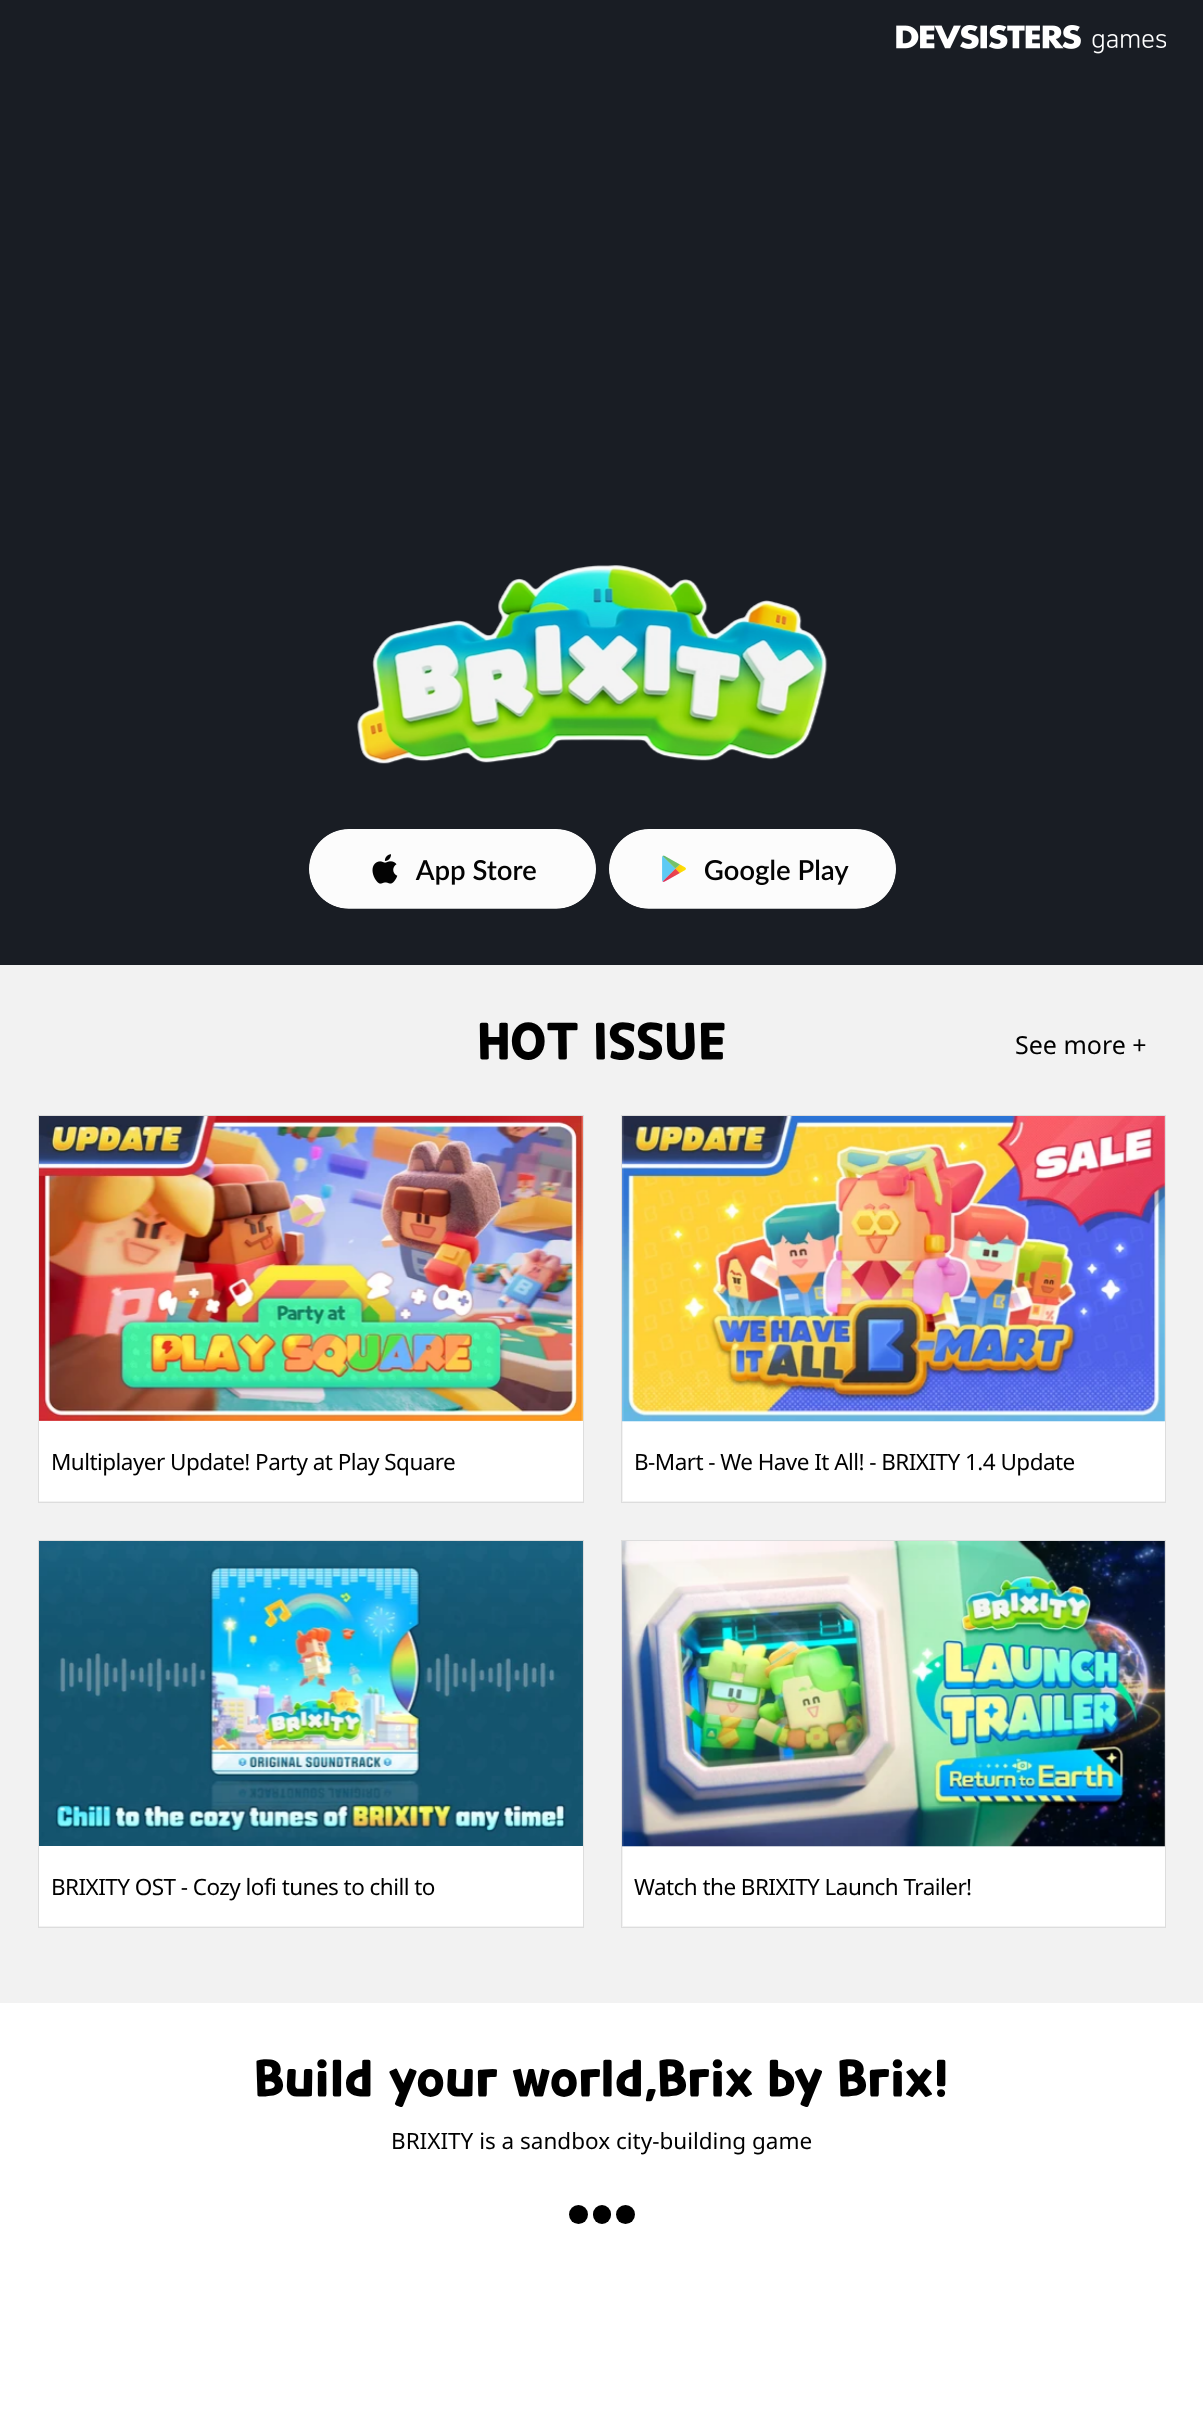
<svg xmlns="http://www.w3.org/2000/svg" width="1203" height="2421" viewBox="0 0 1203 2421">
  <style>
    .t1 { font: bold 50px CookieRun; fill: #000; }
    .t2 { font: 25px Noto Sans; fill: #000; }
    .t3 { font: 22.5px Noto Sans; letter-spacing: -0.55px; fill: #000; }
    .t4 { font: 22.5px Noto Sans; fill: #000; }
  </style>
  <rect width="100%" height="100%" fill="#191d24"/>
  <image x="896" y="25" width="270" height="29" href="images/1.png"/>
  <image x="357" y="565" width="471" height="199" href="images/2.png"/>
  <image x="309" y="829" width="287" height="80" href="images/3.png"/>
  <image x="609" y="829" width="287" height="80" href="images/4.png"/>
  <rect x="0" y="965" width="1203" height="1038" fill="#f2f2f2"/>
  <text x="477" y="1058" class="t1">HOT</text>
  <text x="593" y="1058" class="t1">ISSUE</text>
  <text x="1015" y="1054" class="t2">See more +</text>
  <rect x="38.5" y="1115.5" width="545" height="387" fill="none" stroke="#ddd"/>
  <rect x="39" y="1116" width="544" height="385" fill="#fff"/>
  <image x="39" y="1116" width="544" height="305" href="images/5.png"/>
  <text x="51" y="1470" class="t3">Multiplayer Update! Party at Play Square</text>
  <rect x="621.5" y="1115.5" width="544" height="387" fill="none" stroke="#ddd"/>
  <rect x="623" y="1116" width="542" height="385" fill="#fff"/>
  <image x="622" y="1116" width="543" height="306" href="images/6.png"/>
  <text x="634" y="1470" class="t3">B-Mart - We Have It All! - BRIXITY 1.4 Update</text>
  <rect x="38.5" y="1540.5" width="545" height="387" fill="none" stroke="#ddd"/>
  <rect x="39" y="1541" width="544" height="385" fill="#fff"/>
  <image x="39" y="1541" width="544" height="305" href="images/7.png"/>
  <text x="51" y="1895" class="t3">BRIXITY OST - Cozy lofi tunes to chill to</text>
  <rect x="621.5" y="1540.5" width="544" height="387" fill="none" stroke="#ddd"/>
  <rect x="623" y="1541" width="542" height="385" fill="#fff"/>
  <image x="622" y="1541" width="543" height="306" href="images/8.png"/>
  <text x="634" y="1895" class="t3">Watch the BRIXITY Launch Trailer!</text>
  <rect x="0" y="2003" width="1203" height="418" fill="#fff"/>
  <text x="254" y="2095" class="t1">Build</text>
  <text x="388" y="2095" class="t1">your</text>
  <text x="512" y="2095" class="t1">world,Brix</text>
  <text x="767" y="2095" class="t1">by</text>
  <text x="837" y="2095" class="t1">Brix!</text>
  <text x="391" y="2149" class="t4">BRIXITY is a sandbox city-building game</text>
  <circle cx="578.5" cy="2214.5" r="9.5" fill="#000"/>
  <rect x="593" y="2205" width="18" height="19" rx="9" fill="#000"/>
  <circle cx="625.5" cy="2214.5" r="9.5" fill="#000"/>
</svg>
